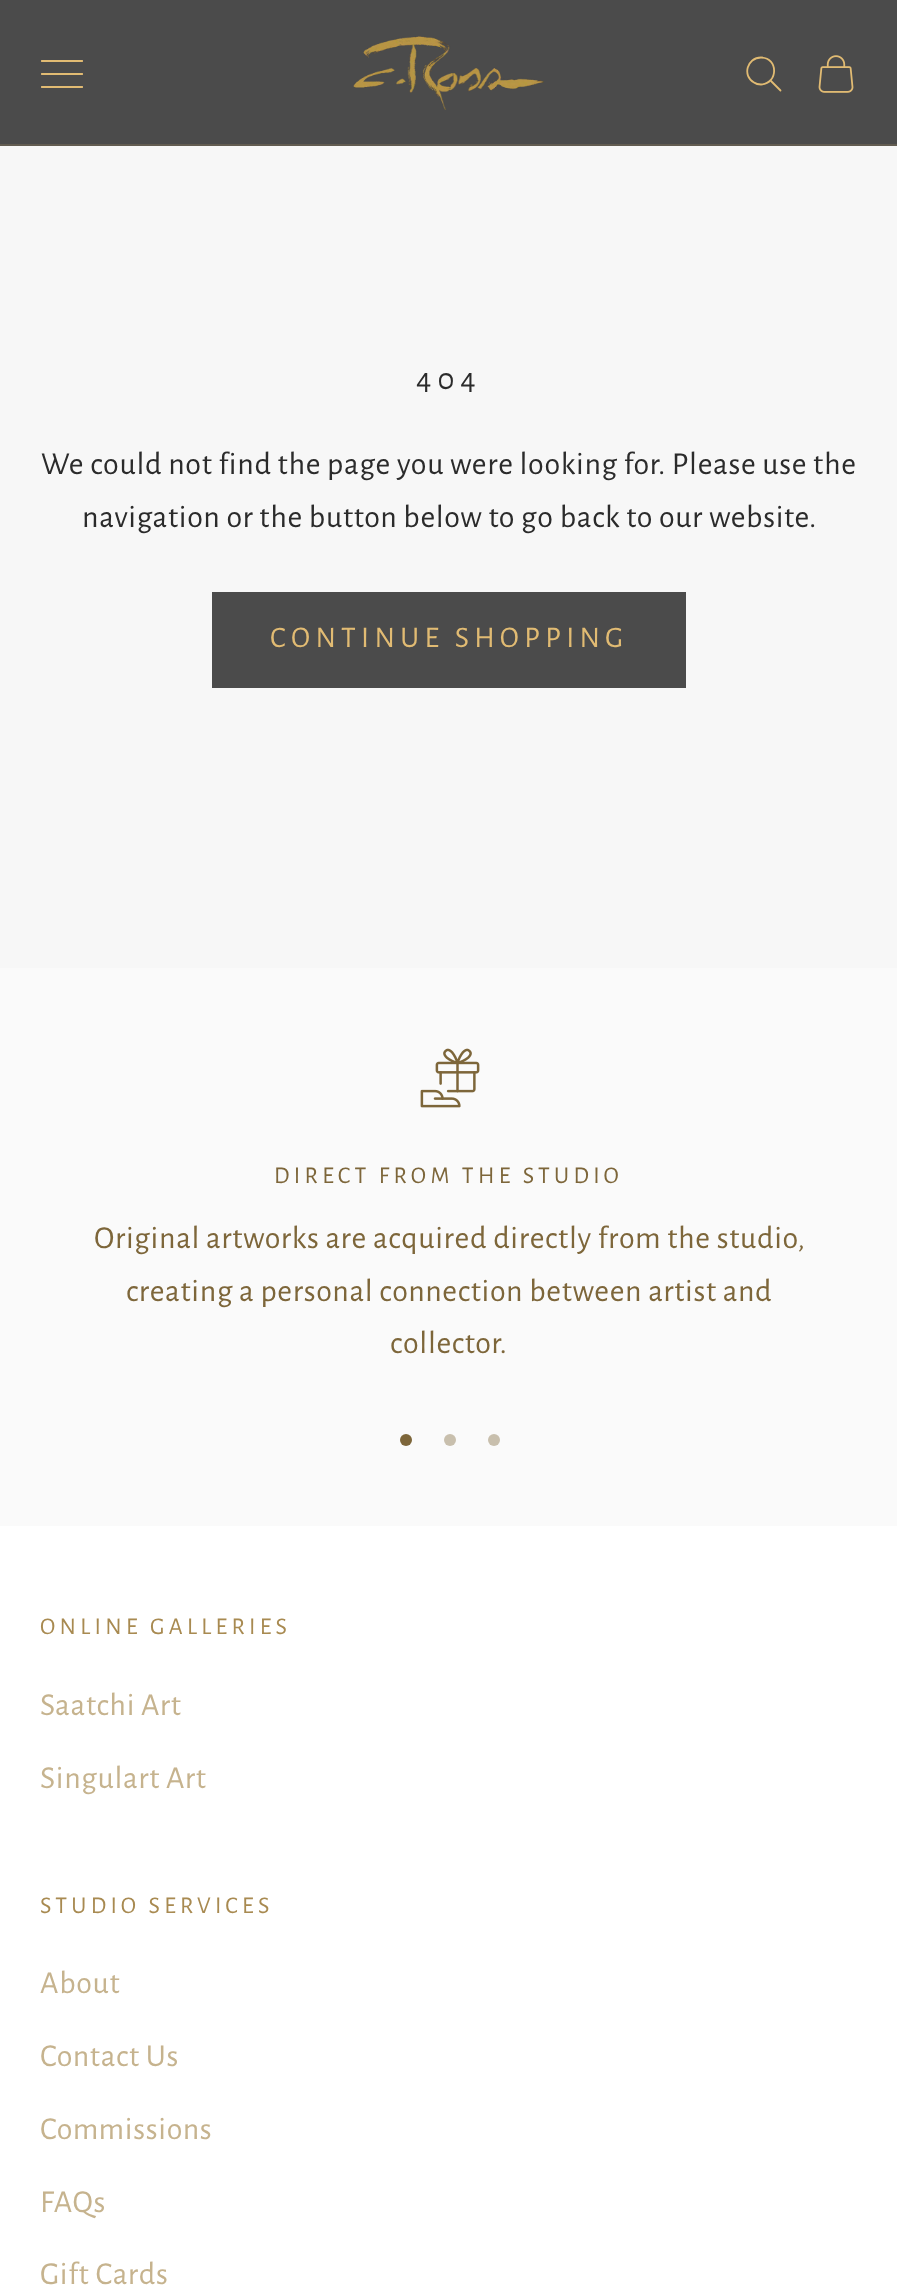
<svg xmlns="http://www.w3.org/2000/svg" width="897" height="2289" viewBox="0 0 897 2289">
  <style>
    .t1 { font: 32px Alegreya Sans; letter-spacing: 6px; fill: #2b2b2b; }
    .t2 { font: 32px Alegreya Sans; letter-spacing: 0.65px; fill: #2b2b2b; }
    .t3 { font: 30px Alegreya Sans; letter-spacing: 5.4px; fill: #e1bb73; }
    .t4 { font: 24px Alegreya Sans; letter-spacing: 4.3px; fill: #7d663a; }
    .t5 { font: 32px Alegreya Sans; letter-spacing: 0.65px; fill: #7d663a; }
    .t6 { font: 24px Alegreya Sans; letter-spacing: 4.3px; fill: #a88a51; }
    .t7 { font: 32px Alegreya Sans; letter-spacing: 0.65px; fill: #c6b38e; }
  </style>
  <rect width="100%" height="100%" fill="#f7f7f7"/>
  <rect x="0" y="0" width="897" height="144" fill="#4b4b4b"/>
  <rect x="0" y="144" width="897" height="2" fill="#625c51"/>
  <path d="M42 87H82M42 74H82M42 61H82" fill="none" stroke="#e1bb73" stroke-width="1.8" stroke-linecap="square"/>
  <image x="353" y="36" width="191" height="74" href="images/1.png"/>
  <path d="M761 57.5C747 57.5 742 76 754 82.5C756 84 758.5 84.5 761 84.5C778.5 83.5 778.5 57.5 761 57.5Z" fill="none" stroke="#e1bb73" stroke-width="1.8"/>
  <path d="M771 81L780.5 90.5" fill="none" stroke="#e1bb73" stroke-width="1.8" stroke-linecap="round"/>
  <image x="818" y="55" width="36" height="38" href="images/2.png"/>
  <text x="416" y="389" class="t1">404</text>
  <text x="41" y="474" class="t2">We could not find the page you were looking for. Please use the</text>
  <text x="82" y="527" class="t2">navigation or the button below to go back to our website.</text>
  <rect x="213" y="593" width="472" height="94" fill="#4b4b4b" stroke="#4b4b4b" stroke-width="2"/>
  <text x="270" y="647" class="t3">CONTINUE SHOPPING</text>
  <rect x="0" y="968" width="897" height="558" fill="#fafafa"/>
  <image x="420" y="1048" width="60" height="60" href="images/3.png"/>
  <text x="274" y="1183" class="t4">DIRECT FROM THE STUDIO</text>
  <text x="94" y="1248" class="t5">Original artworks are acquired directly from the studio,</text>
  <text x="126" y="1301" class="t5">creating a personal connection between artist and</text>
  <text x="390" y="1353" class="t5">collector.</text>
  <circle cx="406" cy="1440" r="6" fill="#7d663a"/>
  <circle cx="450" cy="1440" r="6" fill="#c8bfad"/>
  <circle cx="494" cy="1440" r="6" fill="#c8bfad"/>
  <rect x="0" y="1526" width="897" height="763" fill="#fff"/>
  <text x="40" y="1634" class="t6">ONLINE GALLERIES</text>
  <text x="40" y="1715" class="t7">Saatchi Art</text>
  <text x="40" y="1788" class="t7">Singulart Art</text>
  <text x="40" y="1913" class="t6">STUDIO SERVICES</text>
  <text x="40" y="1993" class="t7">About</text>
  <text x="40" y="2066" class="t7">Contact Us</text>
  <text x="40" y="2139" class="t7">Commissions</text>
  <text x="40" y="2212" class="t7">FAQs</text>
  <text x="40" y="2284" class="t7">Gift Cards</text>
</svg>
